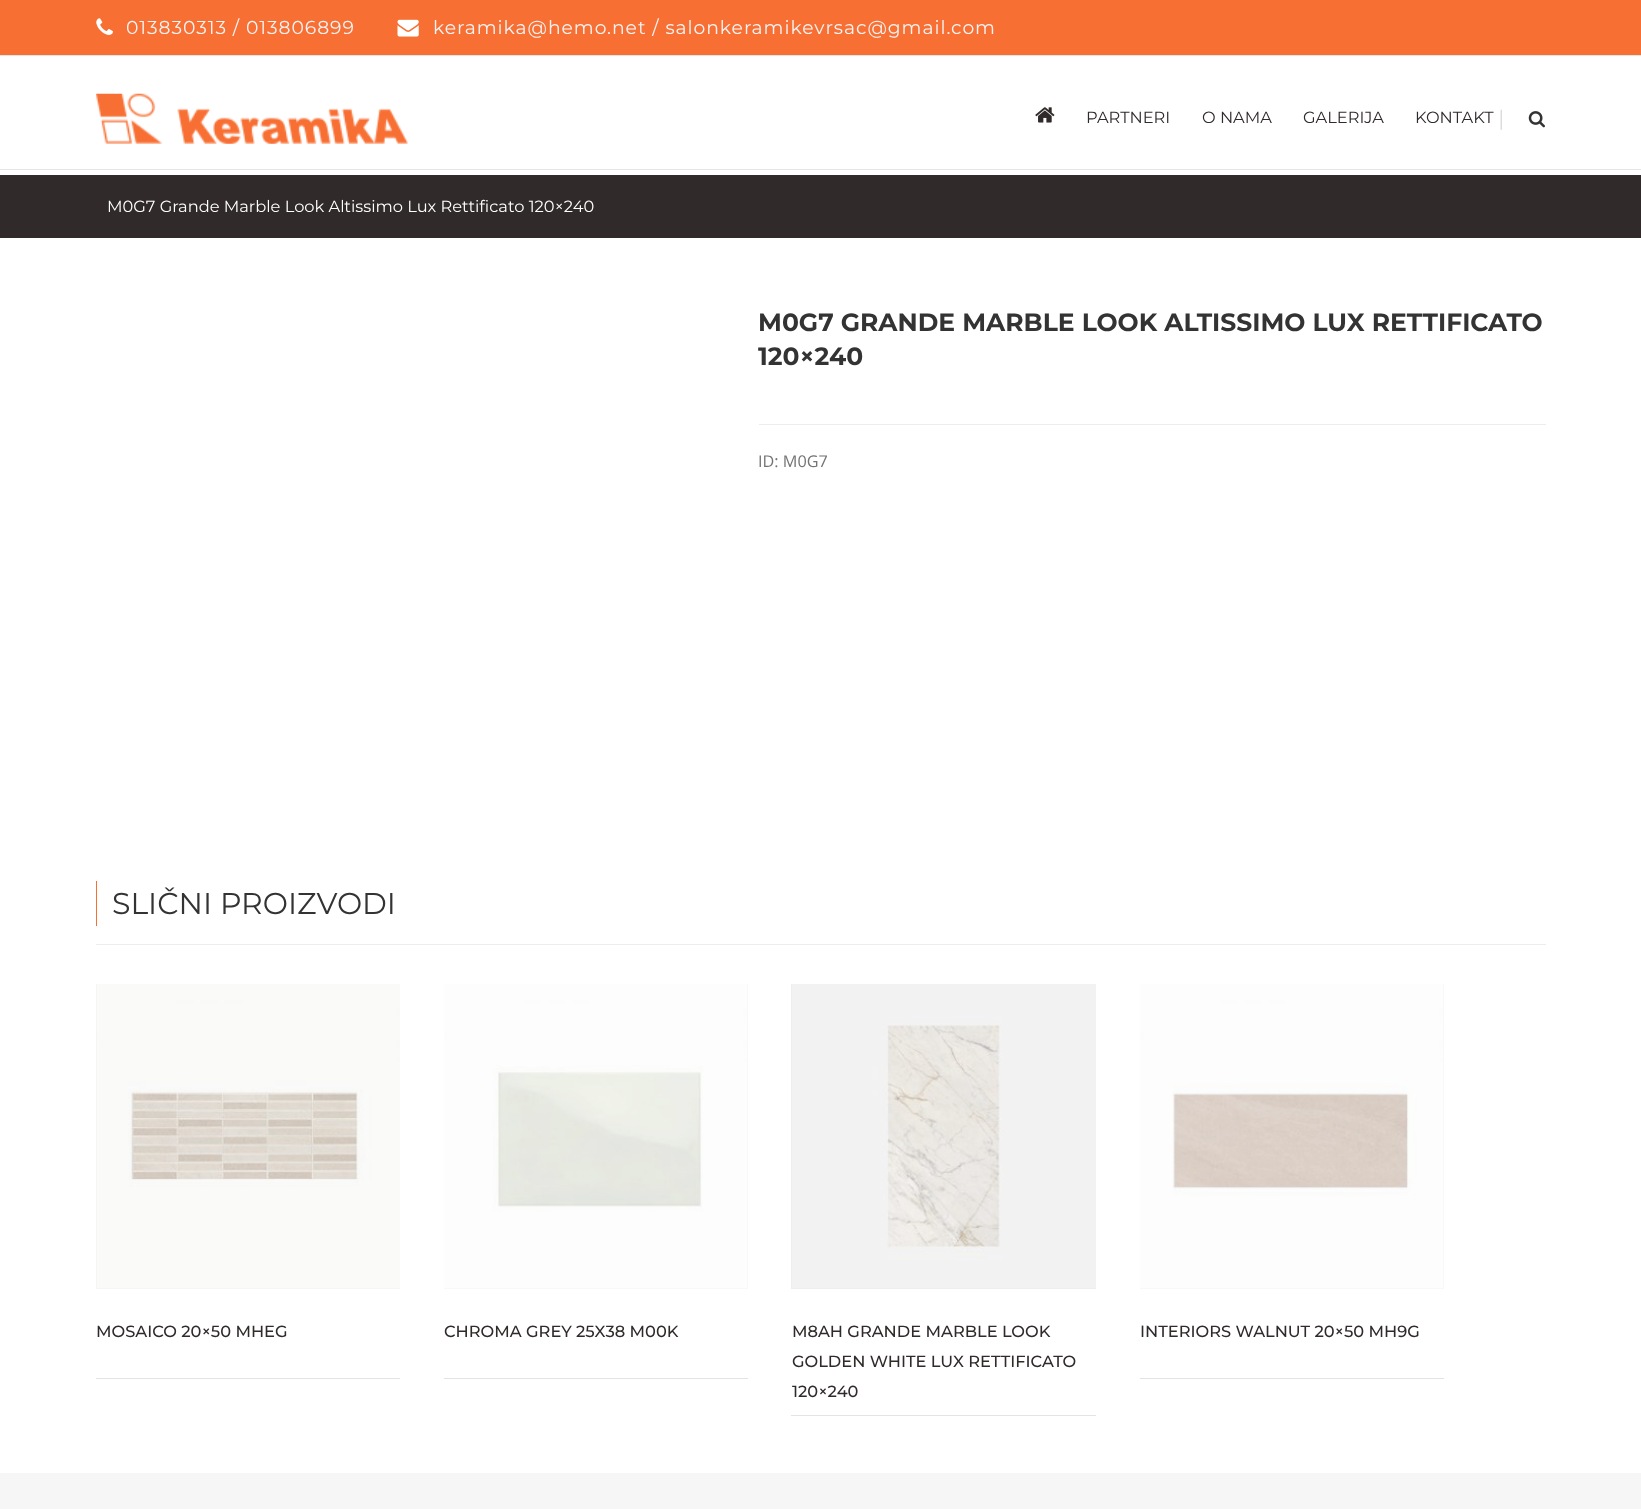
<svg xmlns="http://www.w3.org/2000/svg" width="1641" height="1509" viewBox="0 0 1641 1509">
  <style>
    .t1 { font: 18.75px Montserrat; letter-spacing: 0.95px; fill: #f4f4f4; }
    .t2 { font: 16.25px Montserrat; fill: #302a2a; }
    .t3 { font: 22px Liberation Serif; fill: #d2d2d2; }
    .t4 { font: 16.25px Montserrat; fill: #fff; }
    .t5 { font: bold 25px Montserrat; fill: #333; }
    .t6 { font: 16.25px Open Sans; fill: #747474; }
    .t7 { font: 30px Montserrat; fill: #333; }
    .t8 { font: 500 16.25px Montserrat; fill: #302a2a; }
  </style>
  <rect width="100%" height="100%" fill="#fff"/>
  <rect x="0" y="0" width="1641" height="55" fill="#f76f33"/>
  <rect x="0" y="55" width="1641" height="1" fill="#e5e5e5"/>
  <image x="96" y="18" width="17" height="17" href="images/1.png"/>
  <text x="126" y="34" class="t1">013830313 / 013806899</text>
  <image x="397" y="19" width="22" height="18" href="images/2.png"/>
  <text x="433" y="34" class="t1">keramika@hemo.net / salonkeramikevrsac@gmail.com</text>
  <rect x="0" y="169" width="1641" height="1" fill="#e5e5e5"/>
  <image x="96" y="93" width="312" height="51" href="images/3.png"/>
  <image x="1035" y="107" width="20" height="16" href="images/4.png"/>
  <text x="1086" y="123" class="t2">PARTNERI</text>
  <text x="1202" y="123" class="t2">O NAMA</text>
  <text x="1303" y="123" class="t2">GALERIJA</text>
  <text x="1415" y="123" class="t2">KONTAKT</text>
  <text x="1499" y="125" class="t3">|</text>
  <image x="1528" y="111" width="17" height="17" href="images/5.png"/>
  <rect x="0" y="175" width="1641" height="63" fill="#302a2a"/>
  <text x="107" y="212" class="t4">M0G7 Grande Marble Look Altissimo Lux Rettificato 120×240</text>
  <text x="758" y="331" class="t5">M0G7 GRANDE MARBLE LOOK ALTISSIMO LUX RETTIFICATO</text>
  <text x="758" y="365" class="t5">120×240</text>
  <rect x="759" y="424" width="787" height="1" fill="#ececec"/>
  <text x="758" y="467" class="t6">ID: M0G7</text>
  <rect x="96" y="944" width="1450" height="1" fill="#ececec"/>
  <rect x="96" y="881" width="1" height="45" fill="#f76f33"/>
  <text x="112" y="914" class="t7">SLIČNI PROIZVODI</text>
  <rect x="96" y="984" width="304" height="305" fill="#f2f0ed"/>
  <image x="96" y="984" width="304" height="305" href="images/6.png"/>
  <rect x="96" y="1378" width="304" height="1" fill="#e3e3e3"/>
  <text x="96" y="1337" class="t8">MOSAICO 20×50 MHEG</text>
  <rect x="444" y="984" width="304" height="305" fill="#f8f8f8"/>
  <image x="444" y="984" width="303" height="304" href="images/7.png"/>
  <rect x="444" y="1378" width="304" height="1" fill="#e3e3e3"/>
  <text x="444" y="1337" class="t8">CHROMA GREY 25X38 M00K</text>
  <rect x="791" y="984" width="305" height="305" fill="#f2eded"/>
  <image x="792" y="984" width="304" height="304" href="images/8.png"/>
  <rect x="791" y="1415" width="305" height="1" fill="#e3e3e3"/>
  <text x="792" y="1337" class="t8">M8AH GRANDE MARBLE LOOK</text>
  <text x="792" y="1367" class="t8">GOLDEN WHITE LUX RETTIFICATO</text>
  <text x="792" y="1397" class="t8">120×240</text>
  <rect x="1140" y="984" width="304" height="305" fill="#f8f8f8"/>
  <image x="1140" y="984" width="303" height="304" href="images/9.png"/>
  <rect x="1140" y="1378" width="304" height="1" fill="#e3e3e3"/>
  <text x="1140" y="1337" class="t8">INTERIORS WALNUT 20×50 MH9G</text>
  <rect x="0" y="1473" width="1641" height="36" fill="#f6f6f6"/>
</svg>
